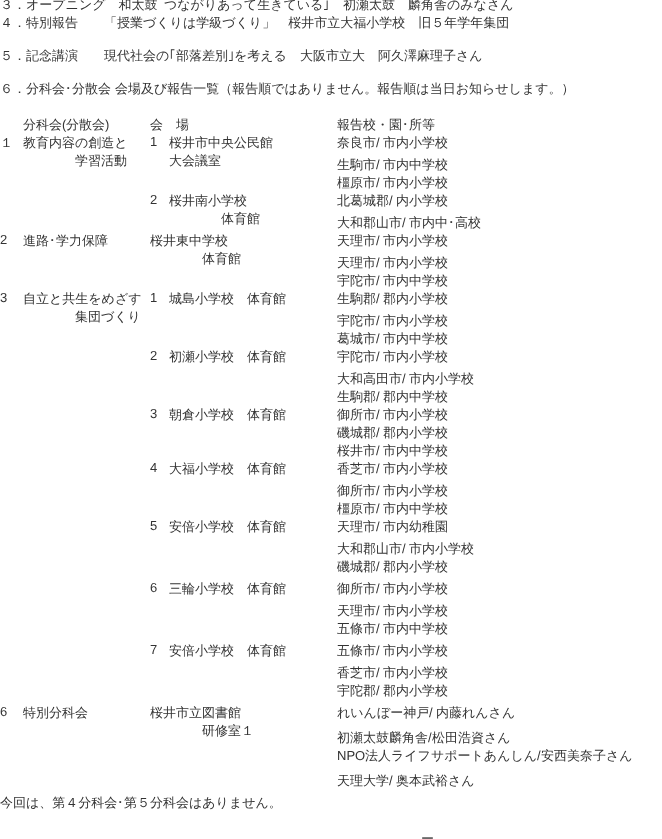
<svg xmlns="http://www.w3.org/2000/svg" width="662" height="839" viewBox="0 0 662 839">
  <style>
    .t1 { font: 500 13px WenQuanYi Zen Hei; fill: #333; }
    .t2 { font: 13px IPAGothic; fill: #333; }
    .t3 { font: 13px Liberation Sans; fill: #333; }
  </style>
  <rect width="100%" height="100%" fill="#fff"/>
  <text x="0" y="9" class="t1">３．オープニング　和太鼓</text>
  <text x="164" y="9" class="t1">つながりあって生きている</text>
  <text x="323" y="9" class="t2">｣</text>
  <text x="343" y="9" class="t1">初瀬太鼓　麟角舎のみなさん</text>
  <text x="0" y="27" class="t1">４．特別報告　　「授業づくりは学級づくり」　桜井市立大福小学校　旧５年学年集団</text>
  <text x="0" y="60" class="t1">５．記念講演　　現代社会の</text>
  <text x="169" y="60" class="t2">｢</text>
  <text x="176" y="60" class="t1">部落差別</text>
  <text x="228" y="60" class="t2">｣</text>
  <text x="234" y="60" class="t1">を考える　大阪市立大　阿久澤麻理子さん</text>
  <text x="0" y="93" class="t1">６．分科会</text>
  <text x="65" y="93" class="t2">･</text>
  <text x="72" y="93" class="t1">分散会 会場及び報告一覧（報告順ではありません。報告順は当日お知らせします。）</text>
  <text x="23" y="129" class="t1">分科会</text>
  <text x="62" y="129" class="t3">(</text>
  <text x="66" y="129" class="t1">分散会</text>
  <text x="105" y="129" class="t3">)</text>
  <text x="150" y="129" class="t1">会　場</text>
  <text x="337" y="129" class="t1">報告校・園</text>
  <text x="402" y="129" class="t2">･</text>
  <text x="409" y="129" class="t1">所等</text>
  <text x="0" y="147" class="t1">１</text>
  <text x="23" y="147" class="t1">教育内容の創造と</text>
  <text x="75" y="165" class="t1">学習活動</text>
  <text x="150" y="146" class="t3">1</text>
  <text x="169" y="147" class="t1">桜井市中央公民館</text>
  <text x="169" y="165" class="t1">大会議室</text>
  <text x="337" y="147" class="t1">奈良市</text>
  <text x="376" y="147" class="t3">/</text>
  <text x="383" y="147" class="t1">市内小学校</text>
  <text x="337" y="169" class="t1">生駒市</text>
  <text x="376" y="169" class="t3">/</text>
  <text x="383" y="169" class="t1">市内中学校</text>
  <text x="337" y="187" class="t1">橿原市</text>
  <text x="376" y="187" class="t3">/</text>
  <text x="383" y="187" class="t1">市内小学校</text>
  <text x="150" y="204" class="t3">2</text>
  <text x="169" y="205" class="t1">桜井南小学校</text>
  <text x="221" y="223" class="t1">体育館</text>
  <text x="337" y="205" class="t1">北葛城郡</text>
  <text x="389" y="205" class="t3">/</text>
  <text x="396" y="205" class="t1">内小学校</text>
  <text x="337" y="227" class="t1">大和郡山市</text>
  <text x="402" y="227" class="t3">/</text>
  <text x="409" y="227" class="t1">市内中</text>
  <text x="448" y="227" class="t2">･</text>
  <text x="455" y="227" class="t1">高校</text>
  <text x="0" y="244" class="t3">2</text>
  <text x="23" y="245" class="t1">進路</text>
  <text x="49" y="245" class="t2">･</text>
  <text x="56" y="245" class="t1">学力保障</text>
  <text x="150" y="245" class="t1">桜井東中学校</text>
  <text x="202" y="263" class="t1">体育館</text>
  <text x="337" y="245" class="t1">天理市</text>
  <text x="376" y="245" class="t3">/</text>
  <text x="383" y="245" class="t1">市内小学校</text>
  <text x="337" y="267" class="t1">天理市</text>
  <text x="376" y="267" class="t3">/</text>
  <text x="383" y="267" class="t1">市内小学校</text>
  <text x="337" y="285" class="t1">宇陀市</text>
  <text x="376" y="285" class="t3">/</text>
  <text x="383" y="285" class="t1">市内中学校</text>
  <text x="0" y="302" class="t3">3</text>
  <text x="23" y="303" class="t1">自立と共生をめざす</text>
  <text x="75" y="321" class="t1">集団づくり</text>
  <text x="150" y="302" class="t3">1</text>
  <text x="169" y="303" class="t1">城島小学校　体育館</text>
  <text x="337" y="303" class="t1">生駒郡</text>
  <text x="376" y="303" class="t3">/</text>
  <text x="383" y="303" class="t1">郡内小学校</text>
  <text x="337" y="325" class="t1">宇陀市</text>
  <text x="376" y="325" class="t3">/</text>
  <text x="383" y="325" class="t1">市内小学校</text>
  <text x="337" y="343" class="t1">葛城市</text>
  <text x="376" y="343" class="t3">/</text>
  <text x="383" y="343" class="t1">市内中学校</text>
  <text x="150" y="360" class="t3">2</text>
  <text x="169" y="361" class="t1">初瀬小学校　体育館</text>
  <text x="337" y="361" class="t1">宇陀市</text>
  <text x="376" y="361" class="t3">/</text>
  <text x="383" y="361" class="t1">市内小学校</text>
  <text x="337" y="383" class="t1">大和高田市</text>
  <text x="402" y="383" class="t3">/</text>
  <text x="409" y="383" class="t1">市内小学校</text>
  <text x="337" y="401" class="t1">生駒郡</text>
  <text x="376" y="401" class="t3">/</text>
  <text x="383" y="401" class="t1">郡内中学校</text>
  <text x="150" y="418" class="t3">3</text>
  <text x="169" y="419" class="t1">朝倉小学校　体育館</text>
  <text x="337" y="419" class="t1">御所市</text>
  <text x="376" y="419" class="t3">/</text>
  <text x="383" y="419" class="t1">市内小学校</text>
  <text x="337" y="437" class="t1">磯城郡</text>
  <text x="376" y="437" class="t3">/</text>
  <text x="383" y="437" class="t1">郡内小学校</text>
  <text x="337" y="455" class="t1">桜井市</text>
  <text x="376" y="455" class="t3">/</text>
  <text x="383" y="455" class="t1">市内中学校</text>
  <text x="150" y="472" class="t3">4</text>
  <text x="169" y="473" class="t1">大福小学校　体育館</text>
  <text x="337" y="473" class="t1">香芝市</text>
  <text x="376" y="473" class="t3">/</text>
  <text x="383" y="473" class="t1">市内小学校</text>
  <text x="337" y="495" class="t1">御所市</text>
  <text x="376" y="495" class="t3">/</text>
  <text x="383" y="495" class="t1">市内小学校</text>
  <text x="337" y="513" class="t1">橿原市</text>
  <text x="376" y="513" class="t3">/</text>
  <text x="383" y="513" class="t1">市内中学校</text>
  <text x="150" y="530" class="t3">5</text>
  <text x="169" y="531" class="t1">安倍小学校　体育館</text>
  <text x="337" y="531" class="t1">天理市</text>
  <text x="376" y="531" class="t3">/</text>
  <text x="383" y="531" class="t1">市内幼稚園</text>
  <text x="337" y="553" class="t1">大和郡山市</text>
  <text x="402" y="553" class="t3">/</text>
  <text x="409" y="553" class="t1">市内小学校</text>
  <text x="337" y="571" class="t1">磯城郡</text>
  <text x="376" y="571" class="t3">/</text>
  <text x="383" y="571" class="t1">郡内小学校</text>
  <text x="150" y="592" class="t3">6</text>
  <text x="169" y="593" class="t1">三輪小学校　体育館</text>
  <text x="337" y="593" class="t1">御所市</text>
  <text x="376" y="593" class="t3">/</text>
  <text x="383" y="593" class="t1">市内小学校</text>
  <text x="337" y="615" class="t1">天理市</text>
  <text x="376" y="615" class="t3">/</text>
  <text x="383" y="615" class="t1">市内小学校</text>
  <text x="337" y="633" class="t1">五條市</text>
  <text x="376" y="633" class="t3">/</text>
  <text x="383" y="633" class="t1">市内中学校</text>
  <text x="150" y="654" class="t3">7</text>
  <text x="169" y="655" class="t1">安倍小学校　体育館</text>
  <text x="337" y="655" class="t1">五條市</text>
  <text x="376" y="655" class="t3">/</text>
  <text x="383" y="655" class="t1">市内小学校</text>
  <text x="337" y="677" class="t1">香芝市</text>
  <text x="376" y="677" class="t3">/</text>
  <text x="383" y="677" class="t1">市内小学校</text>
  <text x="337" y="695" class="t1">宇陀郡</text>
  <text x="376" y="695" class="t3">/</text>
  <text x="383" y="695" class="t1">郡内小学校</text>
  <text x="0" y="716" class="t3">6</text>
  <text x="23" y="717" class="t1">特別分科会</text>
  <text x="150" y="717" class="t1">桜井市立図書館</text>
  <text x="202" y="735" class="t1">研修室１</text>
  <text x="337" y="717" class="t1">れいんぼー神戸</text>
  <text x="429" y="717" class="t3">/</text>
  <text x="436" y="717" class="t1">内藤れんさん</text>
  <text x="337" y="742" class="t1">初瀬太鼓麟角舎</text>
  <text x="428" y="742" class="t3">/</text>
  <text x="432" y="742" class="t1">松田浩資さん</text>
  <text x="337" y="760" class="t3">NPO</text>
  <text x="365" y="760" class="t1">法人ライフサポートあんしん 安西美奈子さん</text>
  <text x="537" y="760" class="t3">/</text>
  <text x="337" y="785" class="t1">天理大学</text>
  <text x="389" y="785" class="t3">/</text>
  <text x="396" y="785" class="t1">奥本武裕さん</text>
  <text x="0" y="807" class="t1">今回は、第４分科会</text>
  <text x="117" y="807" class="t2">･</text>
  <text x="124" y="807" class="t1">第５分科会はありません。</text>
  <text x="421" y="843" class="t1">ー</text>
</svg>
